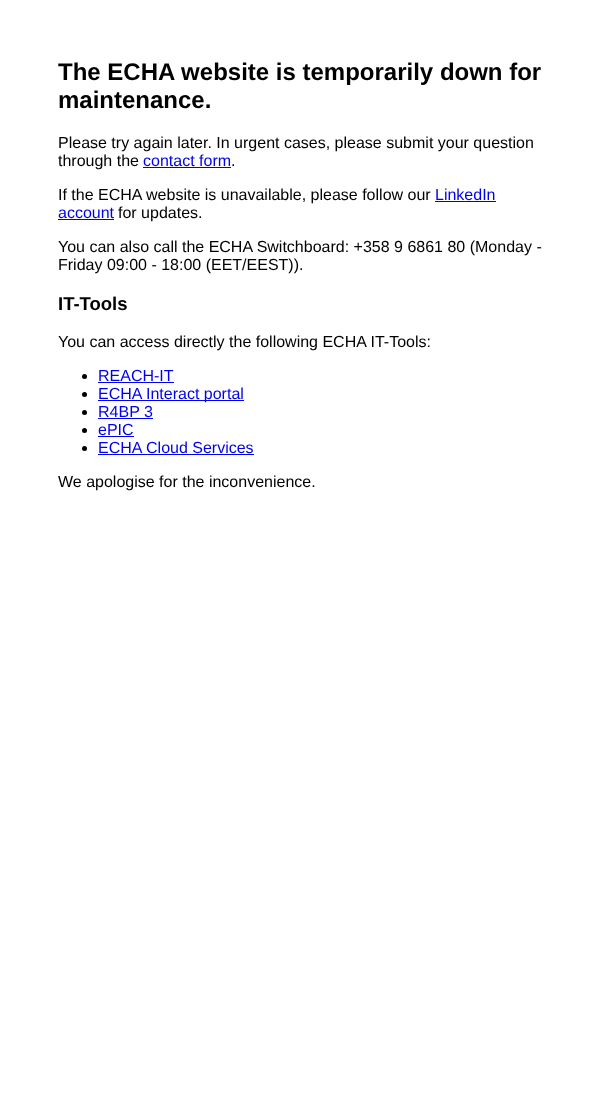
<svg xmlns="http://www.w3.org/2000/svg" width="611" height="1105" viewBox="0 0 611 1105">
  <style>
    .t1 { font: bold 24px Liberation Sans; fill: #000; }
    .t2 { font: 16px Liberation Sans; fill: #000; }
    .t3 { font: 16px Liberation Sans; fill: #00e; }
    .t4 { font: bold 18.5px Liberation Sans; fill: #000; }
  </style>
  <rect width="100%" height="100%" fill="#fff"/>
  <text x="58" y="80" class="t1">The ECHA website is temporarily down for</text>
  <text x="58" y="108" class="t1">maintenance.</text>
  <text x="58" y="148" class="t2">Please try again later. In urgent cases, please submit your question</text>
  <text x="58" y="166" class="t2">through the</text>
  <text x="143" y="166" class="t3">contact form</text>
  <rect x="143" y="167" width="88" height="1" fill="#00e"/>
  <text x="231" y="166" class="t2">.</text>
  <text x="58" y="200" class="t2">If the ECHA website is unavailable, please follow our</text>
  <text x="435" y="200" class="t3">LinkedIn</text>
  <rect x="435" y="201" width="61" height="1" fill="#00e"/>
  <text x="58" y="218" class="t3">account</text>
  <rect x="58" y="219" width="56" height="1" fill="#00e"/>
  <text x="118" y="218" class="t2">for updates.</text>
  <text x="58" y="252" class="t2">You can also call the ECHA Switchboard: +358 9 6861 80 (Monday -</text>
  <text x="58" y="270" class="t2">Friday 09:00 - 18:00 (EET/EEST)).</text>
  <text x="58" y="310" class="t4">IT-Tools</text>
  <text x="58" y="347" class="t2">You can access directly the following ECHA IT-Tools:</text>
  <circle cx="84.5" cy="376.5" r="2.5" fill="#000"/>
  <text x="98" y="381" class="t3">REACH-IT</text>
  <rect x="98" y="382" width="76" height="1" fill="#00e"/>
  <circle cx="84.5" cy="394.5" r="2.5" fill="#000"/>
  <rect x="98" y="400" width="146" height="1" fill="#00e"/>
  <text x="98" y="399" class="t3">ECHA Interact portal</text>
  <circle cx="84.5" cy="412.5" r="2.5" fill="#000"/>
  <text x="98" y="417" class="t3">R4BP 3</text>
  <rect x="98" y="418" width="55" height="1" fill="#00e"/>
  <circle cx="84.5" cy="430.5" r="2.5" fill="#000"/>
  <text x="98" y="435" class="t3">ePIC</text>
  <rect x="98" y="436" width="36" height="1" fill="#00e"/>
  <circle cx="84.5" cy="448.5" r="2.5" fill="#000"/>
  <text x="98" y="453" class="t3">ECHA Cloud Services</text>
  <rect x="98" y="454" width="156" height="1" fill="#00e"/>
  <text x="58" y="487" class="t2">We apologise for the inconvenience.</text>
</svg>
